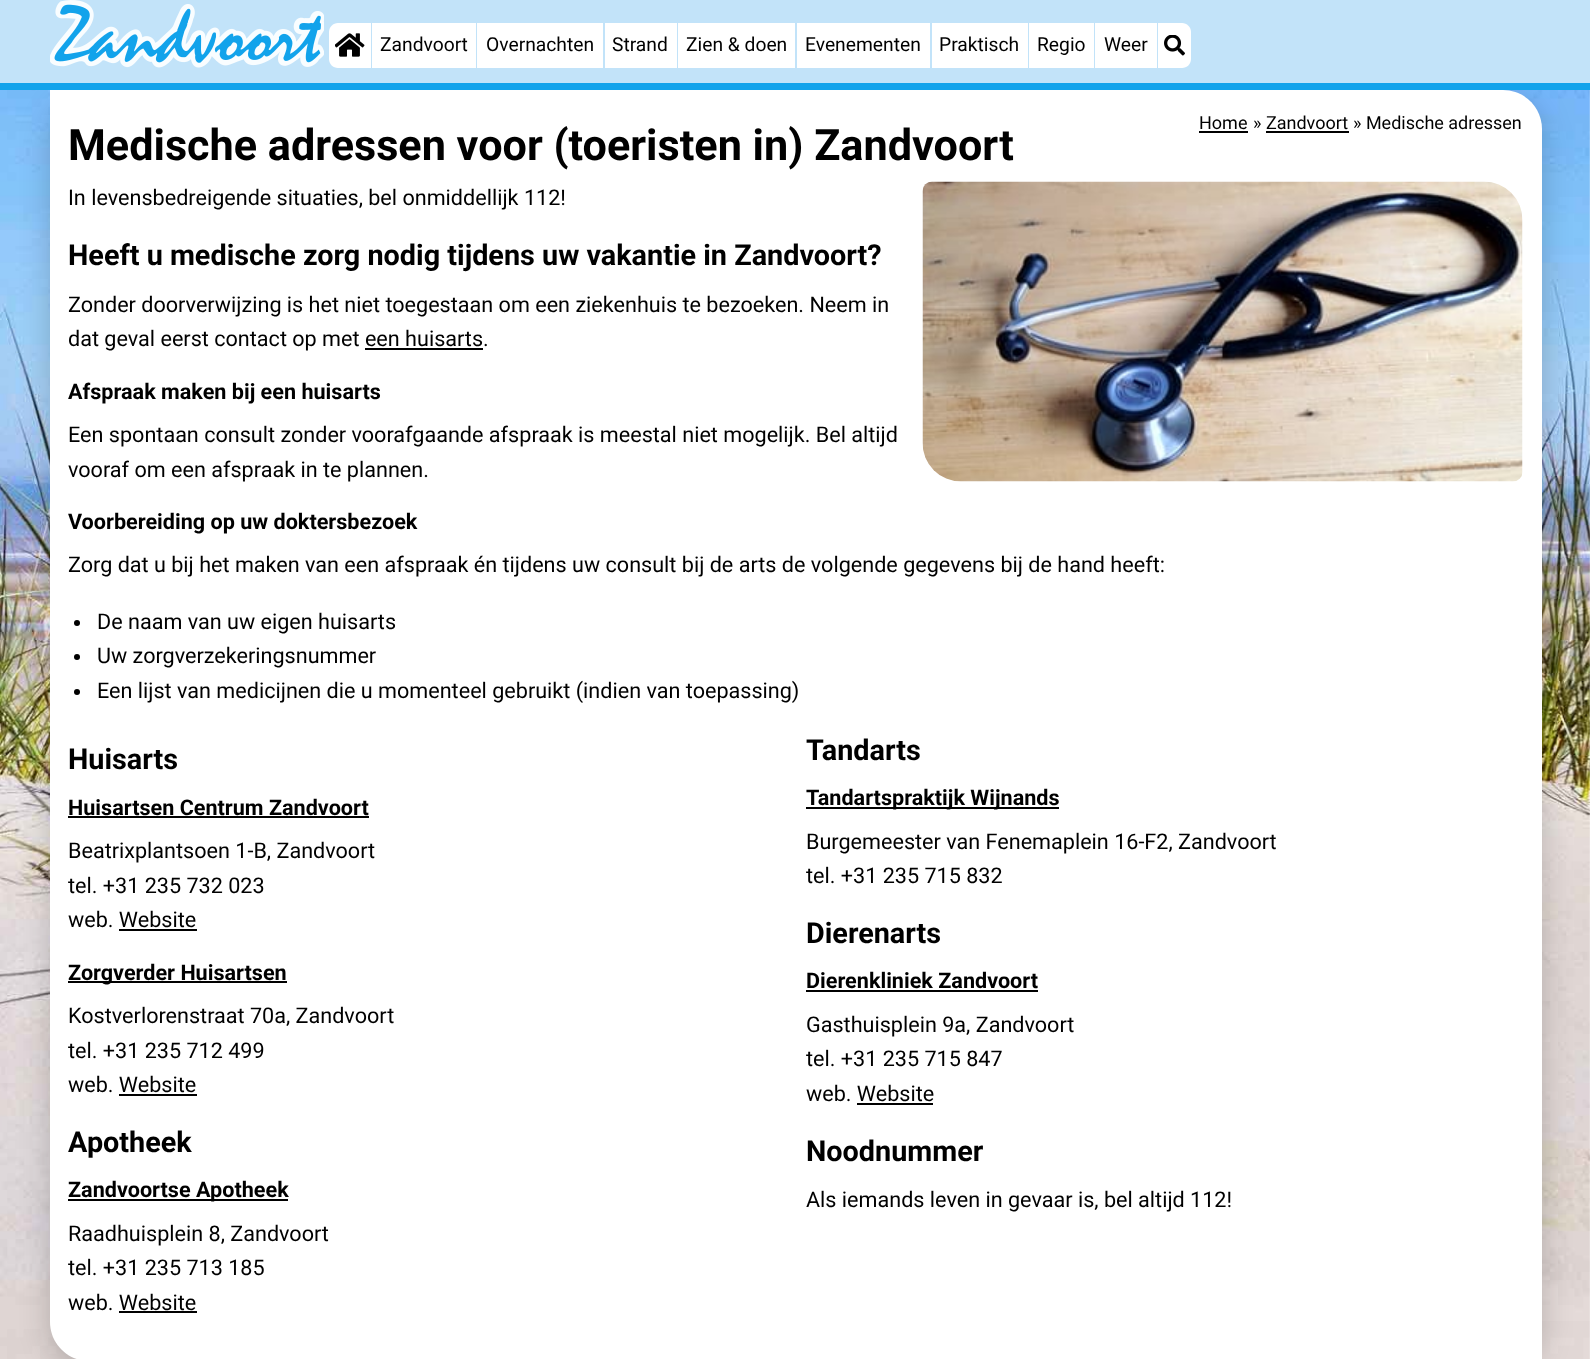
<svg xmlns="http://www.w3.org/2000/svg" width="1590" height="1359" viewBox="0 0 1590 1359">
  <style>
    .t1 { font: 19.25px Roboto; fill: #000; }
    .t2 { font: 18px Roboto; fill: #000; }
    .t3 { font: bold 43.2px Roboto; fill: #000; }
    .t4 { font: 21.6px Roboto; fill: #000; }
    .t5 { font: bold 28.8px Roboto; fill: #000; }
    .t6 { font: bold 21.6px Roboto; fill: #000; }
  </style>
  <rect width="100%" height="100%" fill="#fff"/>
  <image x="0" y="90" width="1590" height="1269" href="images/4.png"/>
  <rect x="50" y="98" width="1492" height="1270" rx="39" fill="#00000033" filter="blur(15px)"/>
  <rect x="0" y="0" width="1590" height="83" fill="#c2e3f9"/>
  <rect x="0" y="83" width="1590" height="7" fill="#12a3eb"/>
  <image x="50" y="0" width="274" height="68" href="images/1.png"/>
  <path d="M338 23H371V68H338C333 68 329 64 329 59V32C329 27 333 23 338 23Z" fill="#fff"/>
  <image x="335" y="33" width="30" height="24" href="images/2.png"/>
  <rect x="372" y="23" width="104" height="45" fill="#fff"/>
  <text x="380" y="51" class="t1">Zandvoort</text>
  <rect x="477" y="23" width="126" height="45" fill="#fff"/>
  <text x="486" y="51" class="t1">Overnachten</text>
  <rect x="605" y="23" width="72" height="45" fill="#fff"/>
  <text x="612" y="51" class="t1">Strand</text>
  <rect x="678" y="23" width="117" height="45" fill="#fff"/>
  <text x="686" y="51" class="t1">Zien &amp; doen</text>
  <rect x="797" y="23" width="133" height="45" fill="#fff"/>
  <text x="805" y="51" class="t1">Evenementen</text>
  <rect x="932" y="23" width="96" height="45" fill="#fff"/>
  <text x="939" y="51" class="t1">Praktisch</text>
  <rect x="1029" y="23" width="65" height="45" fill="#fff"/>
  <text x="1037" y="51" class="t1">Regio</text>
  <rect x="1095" y="23" width="62" height="45" fill="#fff"/>
  <text x="1104" y="51" class="t1">Weer</text>
  <path d="M1158 23H1182C1187 23 1191 27 1191 32V59C1191 64 1187 68 1182 68H1158Z" fill="#fff"/>
  <image x="1164" y="35" width="21" height="21" href="images/3.png"/>
  <path d="M50 90H1503C1524.5 90 1542 107.5 1542 129V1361H89C67.5 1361 50 1343.5 50 1322Z" fill="#fff"/>
  <text x="1199" y="129" class="t2">Home</text>
  <rect x="1199" y="131" width="49" height="2" fill="#000"/>
  <text x="1253" y="129" class="t2">» Zandvoort</text>
  <rect x="1266" y="131" width="83" height="2" fill="#000"/>
  <text x="1353" y="129" class="t2">» Medische adressen</text>
  <text x="68" y="160" class="t3">Medische adressen voor (toeristen in) Zandvoort</text>
  <text x="68" y="205" class="t4">In levensbedreigende situaties, bel onmiddellijk 112!</text>
  <image x="922" y="181" width="601" height="301" href="images/5.png"/>
  <text x="68" y="265" class="t5">Heeft u medische zorg nodig tijdens uw vakantie in Zandvoort?</text>
  <text x="68" y="312" class="t4">Zonder doorverwijzing is het niet toegestaan om een ziekenhuis te bezoeken. Neem in</text>
  <text x="68" y="346" class="t4">dat geval eerst contact op met een huisarts.</text>
  <rect x="365" y="348" width="118" height="2" fill="#000"/>
  <text x="68" y="399" class="t6">Afspraak maken bij een huisarts</text>
  <text x="68" y="442" class="t4">Een spontaan consult zonder voorafgaande afspraak is meestal niet mogelijk. Bel altijd</text>
  <text x="68" y="477" class="t4">vooraf om een afspraak in te plannen.</text>
  <text x="68" y="529" class="t6">Voorbereiding op uw doktersbezoek</text>
  <text x="68" y="572" class="t4">Zorg dat u bij het maken van een afspraak én tijdens uw consult bij de arts de volgende gegevens bij de hand heeft:</text>
  <circle cx="77" cy="623" r="3" fill="#000"/>
  <text x="97" y="629" class="t4">De naam van uw eigen huisarts</text>
  <circle cx="77" cy="657" r="3" fill="#000"/>
  <text x="97" y="663" class="t4">Uw zorgverzekeringsnummer</text>
  <circle cx="77" cy="692" r="3" fill="#000"/>
  <text x="97" y="698" class="t4">Een lijst van medicijnen die u momenteel gebruikt (indien van toepassing)</text>
  <text x="68" y="769" class="t5">Huisarts</text>
  <text x="68" y="815" class="t6">Huisartsen Centrum Zandvoort</text>
  <rect x="68" y="816" width="301" height="2" fill="#000"/>
  <text x="68" y="858" class="t4">Beatrixplantsoen 1-B, Zandvoort</text>
  <text x="68" y="893" class="t4">tel. +31 235 732 023</text>
  <text x="68" y="927" class="t4">web. Website</text>
  <rect x="119" y="929" width="78" height="2" fill="#000"/>
  <rect x="68" y="981" width="219" height="2" fill="#000"/>
  <text x="68" y="980" class="t6">Zorgverder Huisartsen</text>
  <text x="68" y="1023" class="t4">Kostverlorenstraat 70a, Zandvoort</text>
  <text x="68" y="1058" class="t4">tel. +31 235 712 499</text>
  <text x="68" y="1092" class="t4">web. Website</text>
  <rect x="119" y="1094" width="78" height="2" fill="#000"/>
  <text x="806" y="760" class="t5">Tandarts</text>
  <rect x="806" y="807" width="253" height="2" fill="#000"/>
  <text x="806" y="805" class="t6">Tandartspraktijk Wijnands</text>
  <text x="806" y="849" class="t4">Burgemeester van Fenemaplein 16-F2, Zandvoort</text>
  <text x="806" y="883" class="t4">tel. +31 235 715 832</text>
  <text x="806" y="943" class="t5">Dierenarts</text>
  <text x="806" y="988" class="t6">Dierenkliniek Zandvoort</text>
  <rect x="806" y="990" width="232" height="2" fill="#000"/>
  <text x="806" y="1032" class="t4">Gasthuisplein 9a, Zandvoort</text>
  <text x="806" y="1066" class="t4">tel. +31 235 715 847</text>
  <text x="806" y="1101" class="t4">web. Website</text>
  <rect x="857" y="1103" width="76" height="2" fill="#000"/>
  <text x="68" y="1152" class="t5">Apotheek</text>
  <rect x="68" y="1199" width="220" height="2" fill="#000"/>
  <text x="68" y="1197" class="t6">Zandvoortse Apotheek</text>
  <text x="68" y="1241" class="t4">Raadhuisplein 8, Zandvoort</text>
  <text x="68" y="1275" class="t4">tel. +31 235 713 185</text>
  <text x="68" y="1310" class="t4">web. Website</text>
  <rect x="119" y="1311" width="78" height="2" fill="#000"/>
  <text x="806" y="1161" class="t5">Noodnummer</text>
  <text x="806" y="1207" class="t4">Als iemands leven in gevaar is, bel altijd 112!</text>
</svg>
